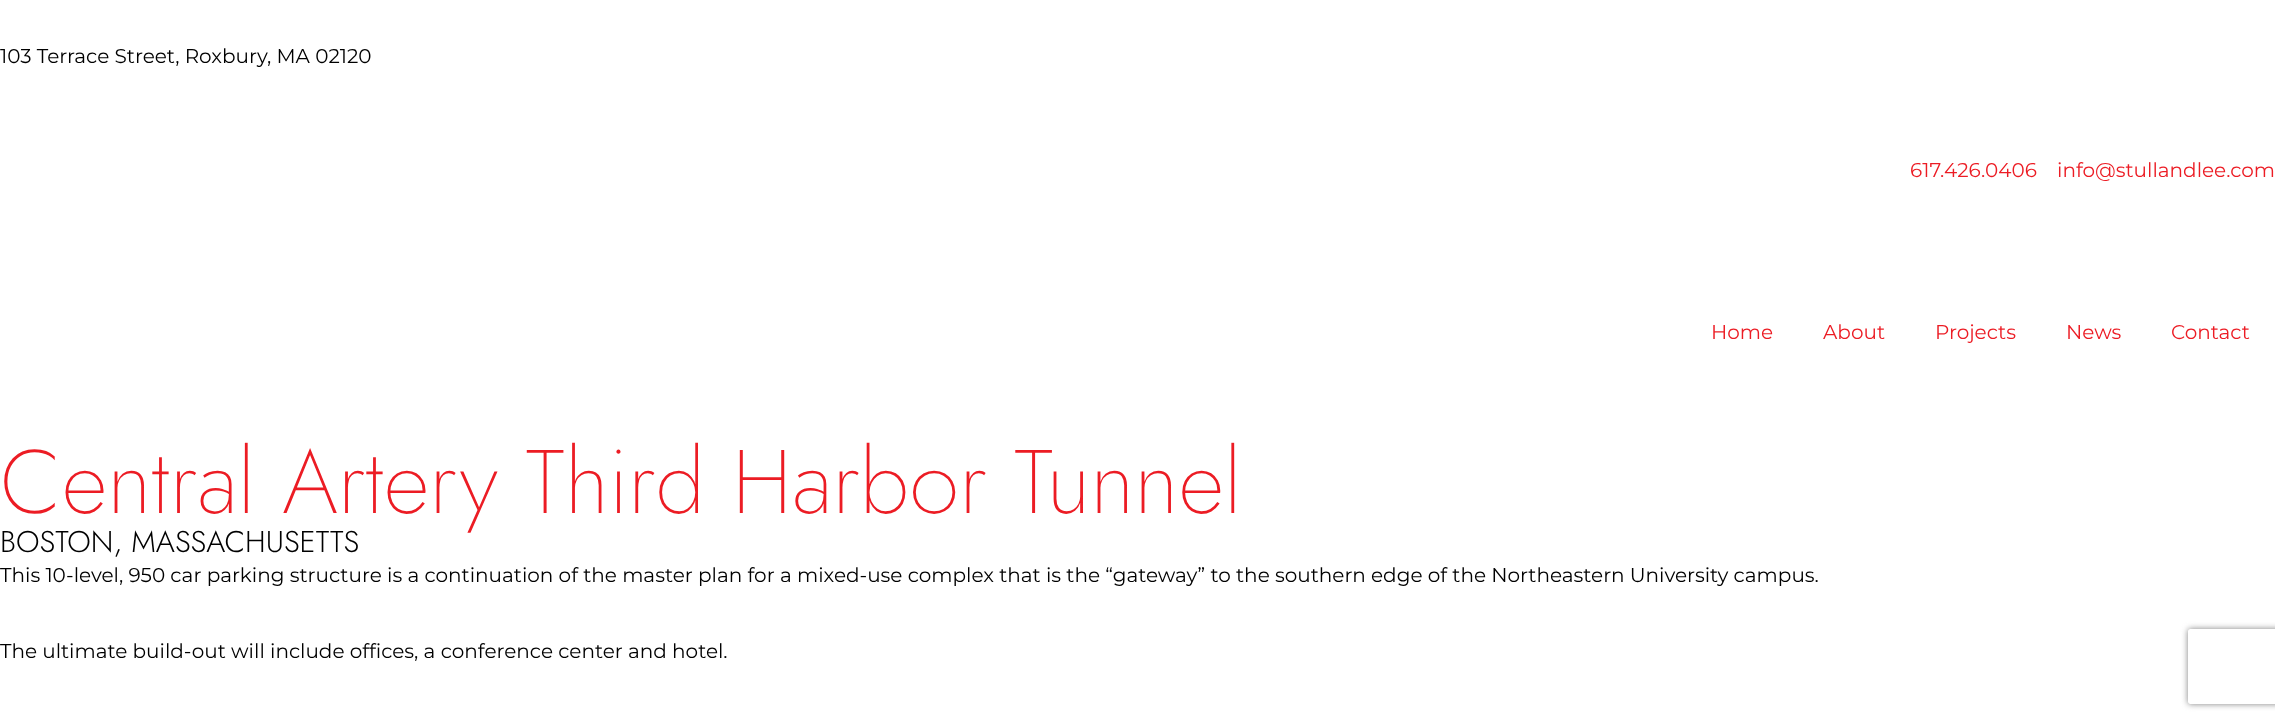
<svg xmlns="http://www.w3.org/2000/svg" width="2275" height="721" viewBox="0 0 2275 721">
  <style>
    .t1 { font: 20px Montserrat; fill: #000; }
    .t2 { font: 20px Montserrat; fill: #ec1c24; }
    .t3 { font: 200 90px Jost; fill: #ec1c24; }
    .t4 { font: 300 30px Jost; fill: #000; }
  </style>
  <defs>
    <clipPath id="clip1"><path d="M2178 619H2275V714H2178ZM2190.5 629H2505.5C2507 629 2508 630 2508 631.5V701.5C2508 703 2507 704 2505.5 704H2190.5C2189 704 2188 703 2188 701.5V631.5C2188 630 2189 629 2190.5 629Z" clip-rule="evenodd"/></clipPath>
  </defs>
  <rect width="100%" height="100%" fill="#fff"/>
  <text x="0" y="63" class="t1">103 Terrace Street, Roxbury, MA 02120</text>
  <text x="1910" y="177" class="t2">617.426.0406</text>
  <text x="2057" y="177" class="t2">info@stullandlee.com</text>
  <text x="1711" y="339" class="t2">Home</text>
  <text x="1823" y="339" class="t2">About</text>
  <text x="1935" y="339" class="t2">Projects</text>
  <text x="2066" y="339" class="t2">News</text>
  <text x="2171" y="339" class="t2">Contact</text>
  <text x="0" y="513" class="t3">Central Artery Third Harbor Tunnel</text>
  <text x="0" y="552" class="t4">BOSTON, MASSACHUSETTS</text>
  <text x="0" y="582" class="t1">This 10-level, 950 car parking structure is a continuation of the master plan for a mixed-use complex that is the “gateway” to the southern edge of the Northeastern University campus.</text>
  <text x="0" y="658" class="t1">The ultimate build-out will include offices, a conference center and hotel.</text>
  <g clip-path="url(#clip1)">
    <rect x="2188" y="629" width="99" height="75" rx="2.5" fill="#808080" filter="blur(3px)"/>
  </g>
</svg>
